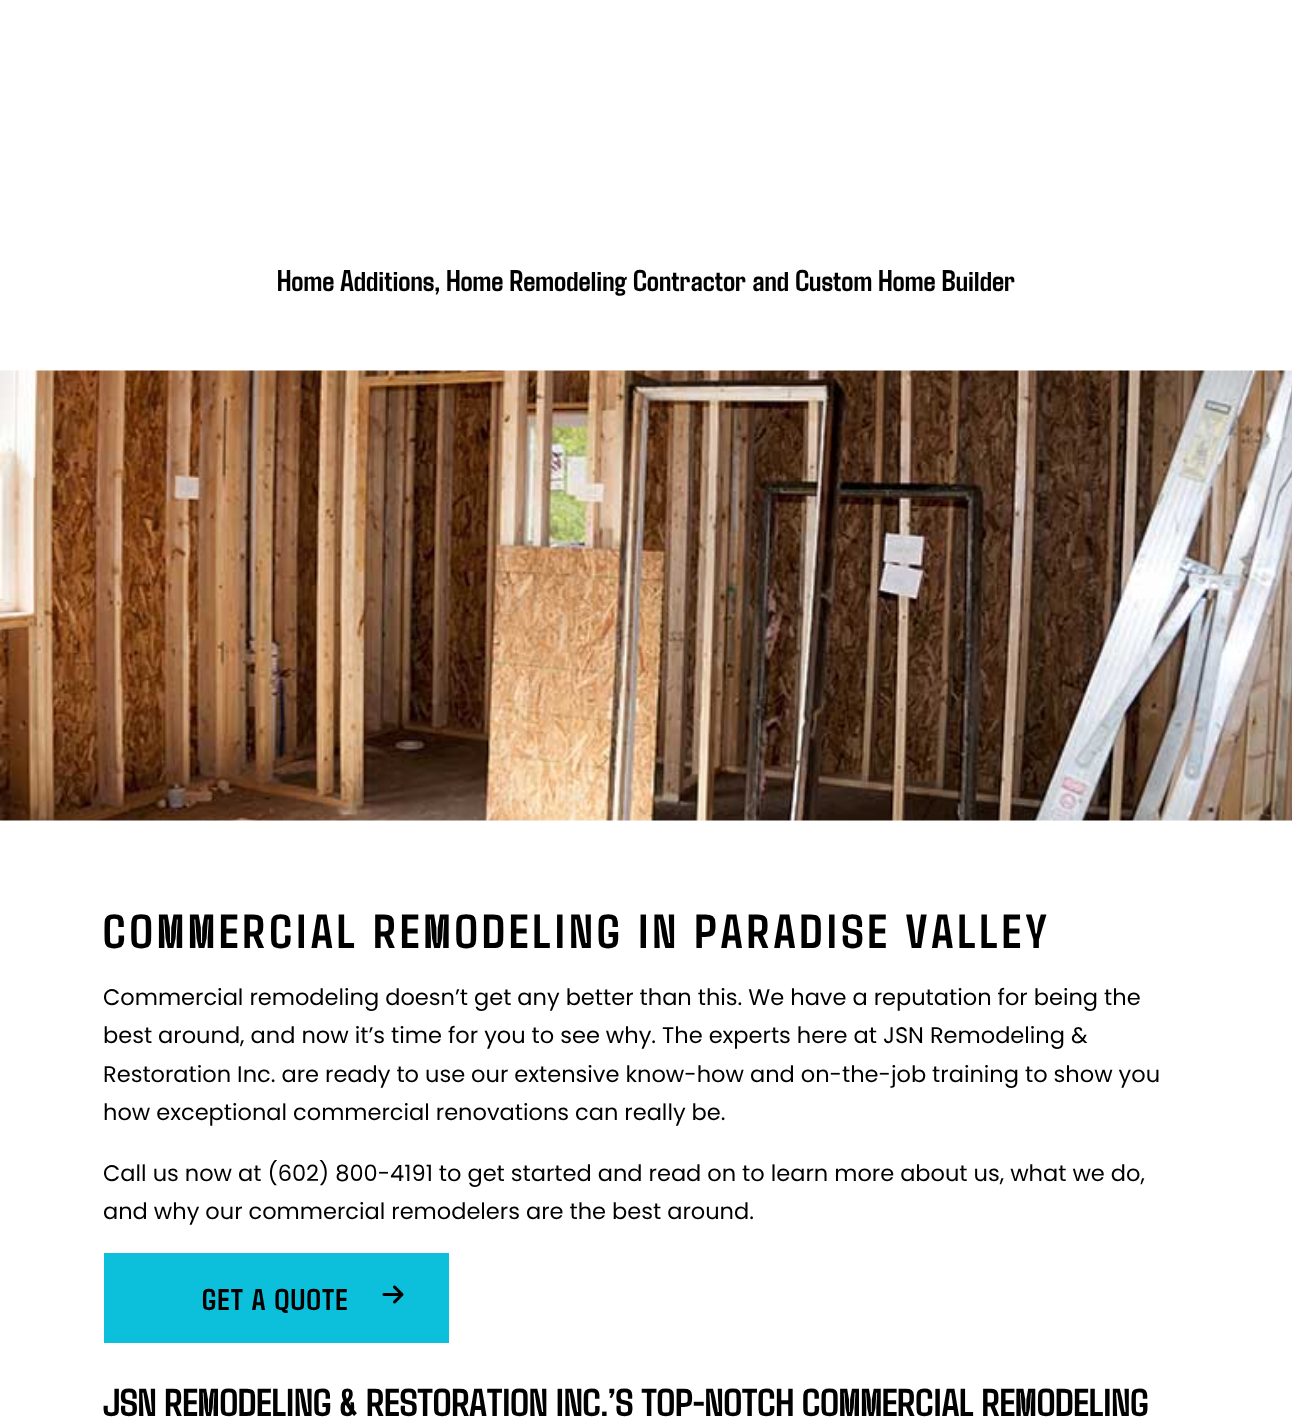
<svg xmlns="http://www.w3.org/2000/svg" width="1292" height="1422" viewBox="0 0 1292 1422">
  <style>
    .t1 { font: bold 30px Agdasima; fill: #000; }
    .t2 { font: bold 48px Agdasima; letter-spacing: 4.5px; fill: #000; }
    .t3 { font: 22.5px Poppins; fill: #000; }
    .t4 { font: bold 30px Agdasima; letter-spacing: 1.5px; fill: #000; }
    .t5 { font: bold 39px Agdasima; fill: #000; }
  </style>
  <rect width="100%" height="100%" fill="#fff"/>
  <text x="277" y="291" class="t1">Home Additions, Home Remodeling Contractor and Custom Home Builder</text>
  <image x="0" y="370" width="1292" height="451" href="images/1.png"/>
  <text x="103" y="948" class="t2">COMMERCIAL REMODELING IN PARADISE VALLEY</text>
  <text x="103" y="1005" class="t3">Commercial remodeling doesn’t get any better than this. We have a reputation for being the</text>
  <text x="103" y="1043" class="t3">best around, and now it’s time for you to see why. The experts here at JSN Remodeling &amp;</text>
  <text x="103" y="1082" class="t3">Restoration Inc. are ready to use our extensive know-how and on-the-job training to show you</text>
  <text x="103" y="1120" class="t3">how exceptional commercial renovations can really be.</text>
  <text x="103" y="1181" class="t3">Call us now at (602) 800-4191 to get started and read on to learn more about us, what we do,</text>
  <text x="103" y="1219" class="t3">and why our commercial remodelers are the best around.</text>
  <rect x="104" y="1253" width="345" height="90" fill="#0cc0dc"/>
  <text x="202" y="1310" class="t4">GET A QUOTE</text>
  <image x="382" y="1285" width="22" height="19" href="images/2.png"/>
  <text x="103" y="1416" class="t5">JSN REMODELING &amp; RESTORATION INC.’S TOP-NOTCH COMMERCIAL REMODELING</text>
</svg>
